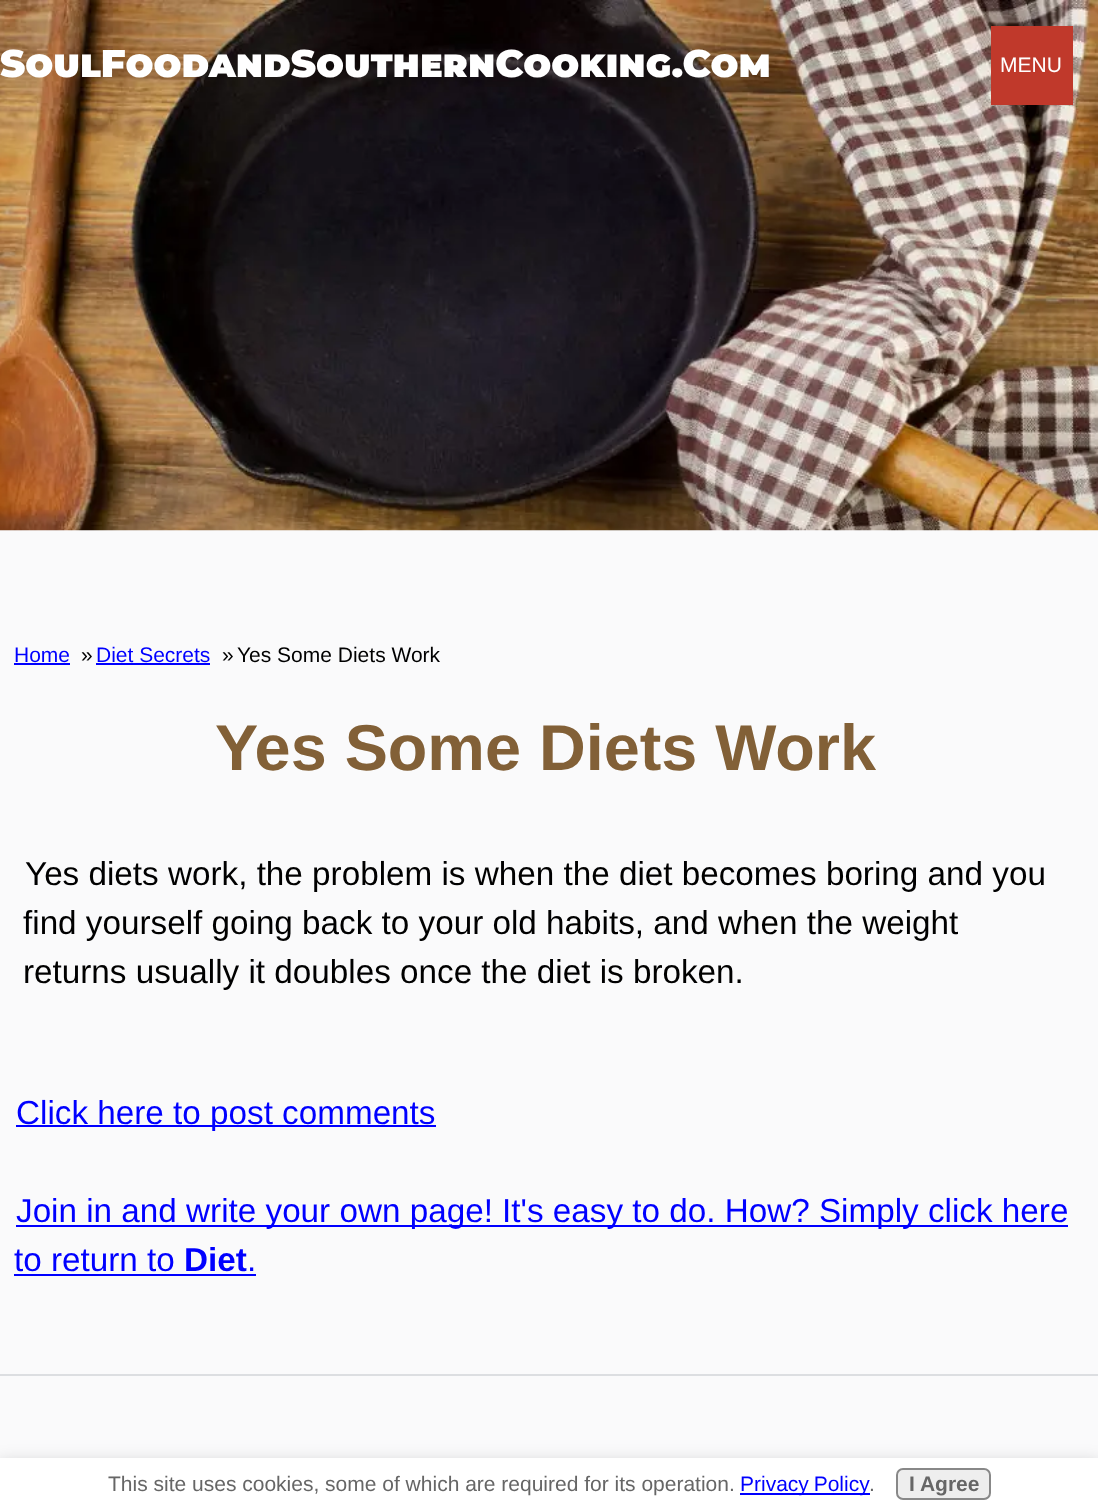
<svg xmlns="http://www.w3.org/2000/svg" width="1098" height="1509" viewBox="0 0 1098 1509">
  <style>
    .t1 { font: 900 38.5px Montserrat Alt; fill: #fff; }
    .t2 { font: 21px Liberation Sans; fill: #fff; }
    .t3 { font: 21px Liberation Sans; fill: #00f; }
    .t4 { font: 21px Liberation Sans; fill: #000; }
    .t5 { font: bold 64.75px Liberation Sans; fill: #826037; }
    .t6 { font: 33.25px Liberation Sans; fill: #000; }
    .t7 { font: 33.25px Liberation Sans; fill: #00f; }
    .t8 { font: bold 33.25px Liberation Sans; fill: #00f; }
    .t9 { font: 21px Liberation Sans; fill: #666; }
    .t10 { font: bold 21px Liberation Sans; fill: #666; }
  </style>
  <rect width="100%" height="100%" fill="#fafafb"/>
  <image x="0" y="0" width="1098" height="531" href="images/1.png"/>
  <text x="0" y="77" class="t1">SoulFoodandSouthernCooking.Com</text>
  <rect x="991" y="26" width="82" height="79" fill="#c0392b"/>
  <text x="1000" y="72" class="t2">MENU</text>
  <text x="14" y="662" class="t3">Home</text>
  <rect x="14" y="663" width="56" height="2" fill="#00f"/>
  <text x="81" y="662" class="t4">»</text>
  <text x="96" y="662" class="t3">Diet Secrets</text>
  <rect x="96" y="663" width="114" height="2" fill="#00f"/>
  <text x="222" y="662" class="t4">»</text>
  <text x="237" y="662" class="t4">Yes Some Diets Work</text>
  <text x="215" y="770" class="t5">Yes Some Diets Work</text>
  <text x="25" y="885" class="t6">Yes diets work, the problem is when the diet becomes boring and you</text>
  <text x="23" y="934" class="t6">find yourself going back to your old habits, and when the weight</text>
  <text x="23" y="983" class="t6">returns usually it doubles once the diet is broken.</text>
  <rect x="16" y="1125" width="420" height="2" fill="#00f"/>
  <text x="16" y="1124" class="t7">Click here to post comments</text>
  <rect x="16" y="1225" width="1052" height="2" fill="#00f"/>
  <text x="16" y="1222" class="t7">Join in and write your own page! It's easy to do. How? Simply click here</text>
  <text x="14" y="1271" class="t7">to return to</text>
  <text x="184" y="1271" class="t8">Diet</text>
  <text x="247" y="1271" class="t7">.</text>
  <rect x="14" y="1274" width="242" height="2" fill="#00f"/>
  <rect x="0" y="1374" width="1098" height="2" fill="#dcdee1"/>
  <rect x="-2" y="1463" width="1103" height="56" fill="#00000033" filter="blur(9px)"/>
  <rect x="0" y="1458" width="1098" height="51" fill="#fff"/>
  <text x="108" y="1491" class="t9">This site uses cookies, some of which are required for its operation.</text>
  <rect x="740" y="1493" width="130" height="2" fill="#00f"/>
  <text x="740" y="1491" word-spacing="-1" class="t3">Privacy Policy</text>
  <text x="869" y="1491" class="t9">.</text>
  <rect x="897" y="1469" width="93" height="30" rx="6" fill="#eee" stroke="#888" stroke-width="2"/>
  <text x="909" y="1491" class="t10">I Agree</text>
</svg>
